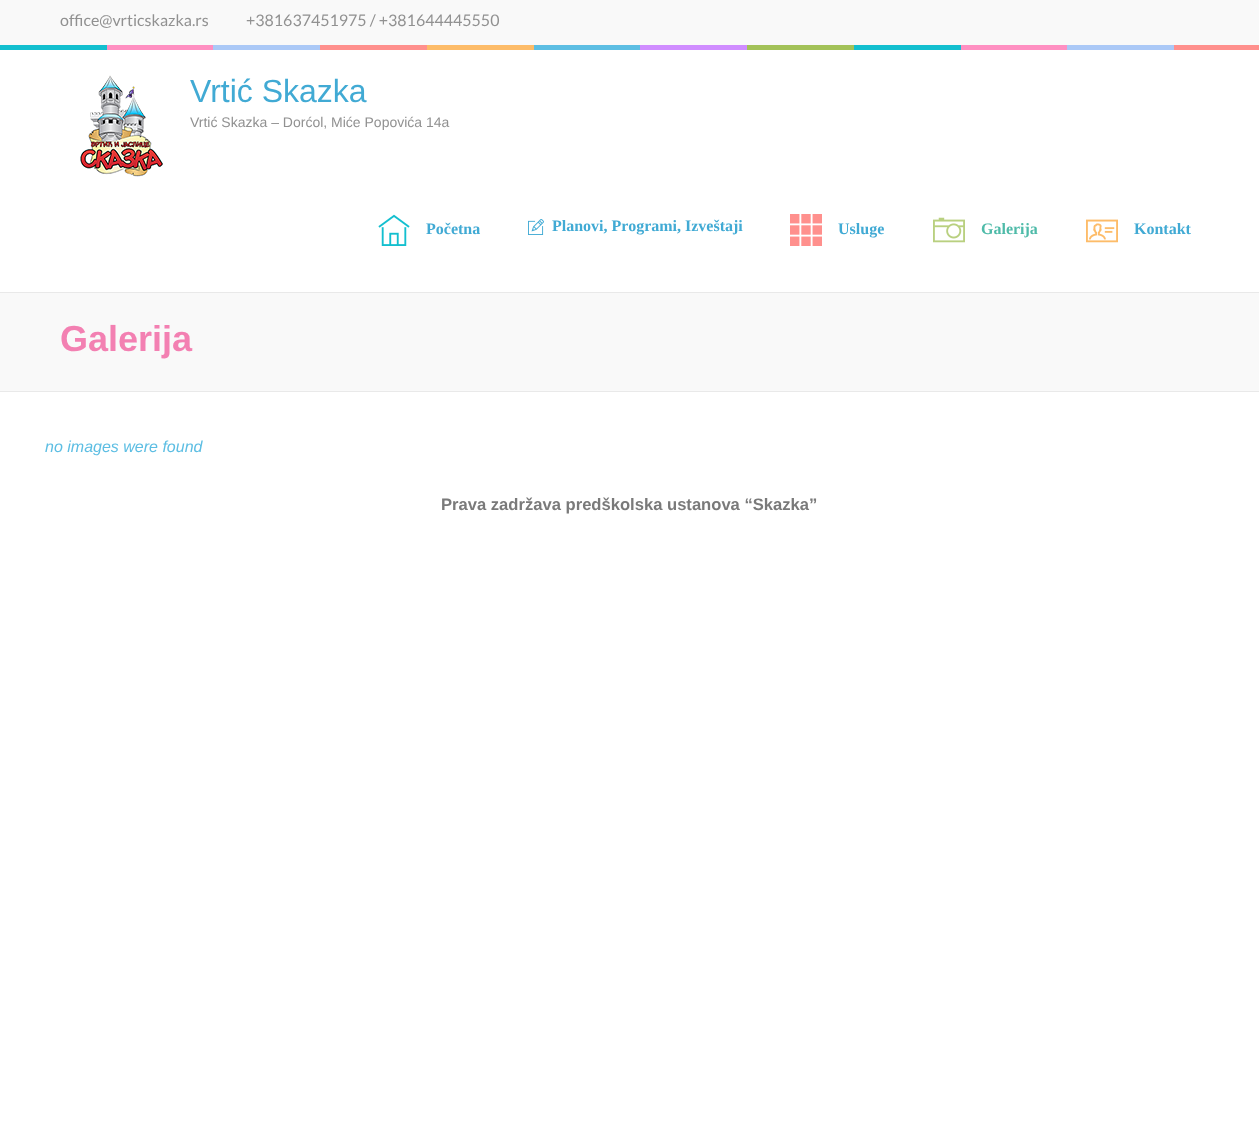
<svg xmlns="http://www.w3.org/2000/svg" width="1259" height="1125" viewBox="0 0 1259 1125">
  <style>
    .t1 { font: 16px Lato; fill: #919191; }
    .t2 { font: 32px Liberation Sans; fill: #41aad4; }
    .t3 { font: 14px Liberation Sans; fill: #919191; }
    .t4 { font: bold 16px Liberation Serif; fill: #41aad4; }
    .t5 { font: bold 16px Liberation Serif; fill: #4fbba9; }
    .t6 { font: bold 36px Liberation Sans; fill: #f380b2; }
    .t7 { font: italic 16px Liberation Sans; fill: #5dbee3; }
    .t8 { font: bold 16.6px Liberation Sans; fill: #7a7a7a; }
  </style>
  <rect width="100%" height="100%" fill="#fff"/>
  <rect x="0" y="0" width="1259" height="45" fill="#f9f9f9"/>
  <image x="0" y="45" width="1259" height="5" href="images/1.png"/>
  <text x="60" y="26" class="t1">office@vrticskazka.rs</text>
  <text x="246" y="26" class="t1">+381637451975 / +381644445550</text>
  <image x="80" y="75" width="83" height="102" href="images/2.png"/>
  <text x="190" y="102" class="t2">Vrtić Skazka</text>
  <text x="190" y="127" class="t3">Vrtić Skazka – Dorćol, Miće Popovića 14a</text>
  <image x="378" y="214" width="32" height="32" href="images/3.png"/>
  <text x="426" y="234" class="t4">Početna</text>
  <image x="528" y="219" width="16" height="16" href="images/4.png"/>
  <text x="552" y="231" class="t4">Planovi, Programi, Izveštaji</text>
  <image x="790" y="214" width="32" height="32" href="images/5.png"/>
  <text x="838" y="234" class="t4">Usluge</text>
  <image x="933" y="217" width="32" height="26" href="images/6.png"/>
  <text x="981" y="234" class="t5">Galerija</text>
  <image x="1086" y="219" width="32" height="24" href="images/7.png"/>
  <text x="1134" y="234" class="t4">Kontakt</text>
  <rect x="0" y="293" width="1259" height="98" fill="#f9f9f9"/>
  <rect x="0" y="292" width="1259" height="1" fill="#e9e9e9"/>
  <rect x="0" y="391" width="1259" height="1" fill="#e9e9e9"/>
  <text x="60" y="351" class="t6">Galerija</text>
  <text x="45" y="452" class="t7">no images were found</text>
  <text x="441" y="510" class="t8">Prava zadržava predškolska ustanova “Skazka”</text>
</svg>
